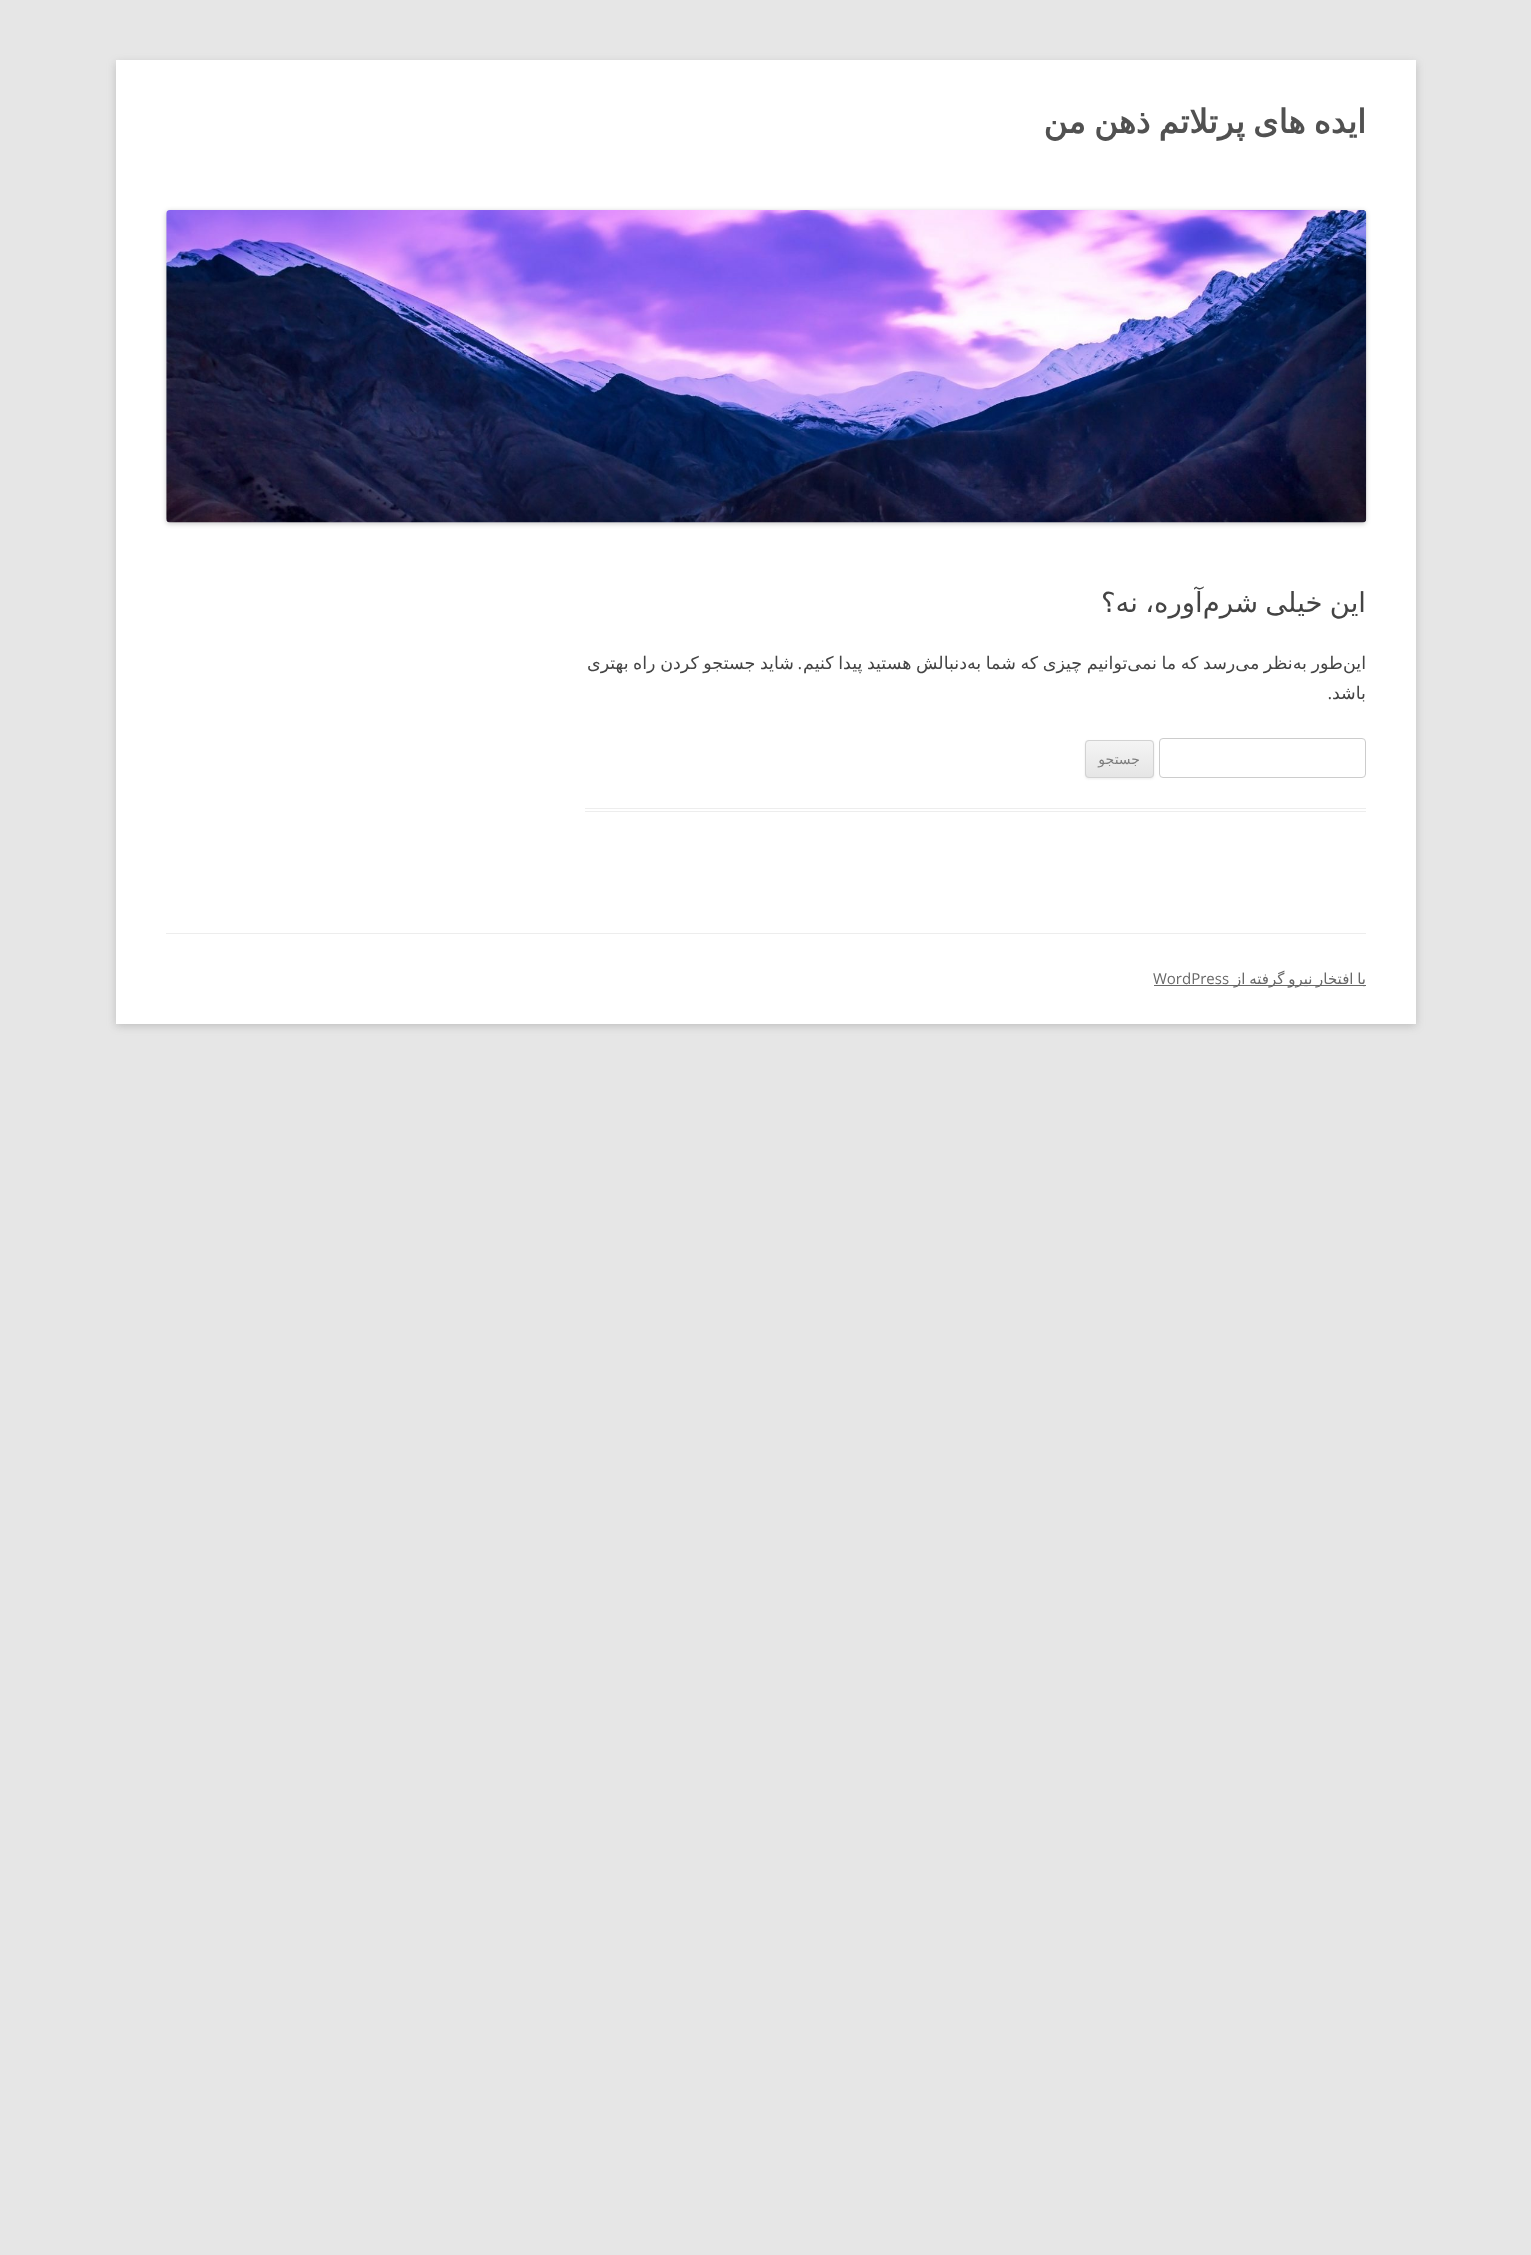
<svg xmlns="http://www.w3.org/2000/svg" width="1531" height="2255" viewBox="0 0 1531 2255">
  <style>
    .t1 { font: bold 32.5px DejaVu Sans; direction: rtl; fill: #515151; }
    .t2 { font: 27.5px DejaVu Sans; direction: rtl; fill: #444; }
    .t3 { font: 17.5px DejaVu Sans; direction: rtl; fill: #444; }
    .t4 { font: 17.5px Open Sans; direction: rtl; fill: #444; }
    .t5 { font: 14px DejaVu Sans; direction: rtl; fill: #7c7c7c; }
    .t6 { font: 15px DejaVu Sans; direction: rtl; fill: #686868; }
    .t7 { font: 15px Open Sans; fill: #686868; }
  </style>
  <defs>
    <clipPath id="clip1"><rect x="1085" y="740" width="69" height="38" rx="4"/></clipPath>
    <linearGradient id="g1" gradientUnits="userSpaceOnUse" x1="1119" y1="741" x2="1119" y2="776"><stop offset="0" stop-color="#f4f4f4"/><stop offset="1" stop-color="#e6e6e6"/></linearGradient>
  </defs>
  <rect width="100%" height="100%" fill="#e6e6e6"/>
  <rect x="116" y="63" width="1300" height="963" fill="#6464644d" filter="blur(4px)"/>
  <rect x="116" y="60" width="1300" height="964" fill="#fff"/>
  <text x="1366" y="133" word-spacing="-2" class="t1">ایده های پرتلاتم ذهن من</text>
  <rect x="166" y="211" width="1200" height="313" rx="4" fill="#00000033" filter="blur(2.5px)"/>
  <image x="166" y="210" width="1201" height="313" href="images/1.png"/>
  <rect x="585" y="808" width="781" height="1" fill="#ededed"/>
  <rect x="585" y="811" width="781" height="1" fill="#ededed"/>
  <text x="1366" y="612" word-spacing="-1.5" class="t2">این خیلی شرم‌آوره، نه؟</text>
  <text x="1366" y="669" word-spacing="-1" class="t3">این‌طور به‌نظر می‌رسد که ما نمی‌توانیم چیزی که شما به‌دنبالش هستید پیدا کنیم</text>
  <text x="802" y="669" class="t4">.</text>
  <text x="794" y="669" word-spacing="-1" class="t3">شاید جستجو کردن راه بهتری</text>
  <text x="1366" y="699" class="t3">باشد</text>
  <text x="1332" y="699" class="t4">.</text>
  <rect x="1159.5" y="738.5" width="206" height="39" rx="3.5" fill="none" stroke="#ccc"/>
  <rect x="1085" y="741" width="69" height="38" rx="4" fill="#4040401a" filter="blur(1px)"/>
  <rect x="1085" y="740" width="69" height="38" rx="4" fill="#e6e6e6"/>
  <g clip-path="url(#clip1)">
    <rect x="1085" y="741" width="69" height="35" fill="url(#g1)"/>
  </g>
  <rect x="1085.5" y="740.5" width="68" height="37" rx="3.5" fill="none" stroke="#d2d2d2"/>
  <text x="1140" y="764" class="t5">جستجو</text>
  <rect x="166" y="933" width="1200" height="1" fill="#ededed"/>
  <rect x="1154" y="985" width="212" height="1" fill="#686868"/>
  <text x="1366" y="984" word-spacing="-1" class="t6">با افتخار نیرو گرفته از</text>
  <text x="1153" y="984" class="t7">WordPress</text>
</svg>
